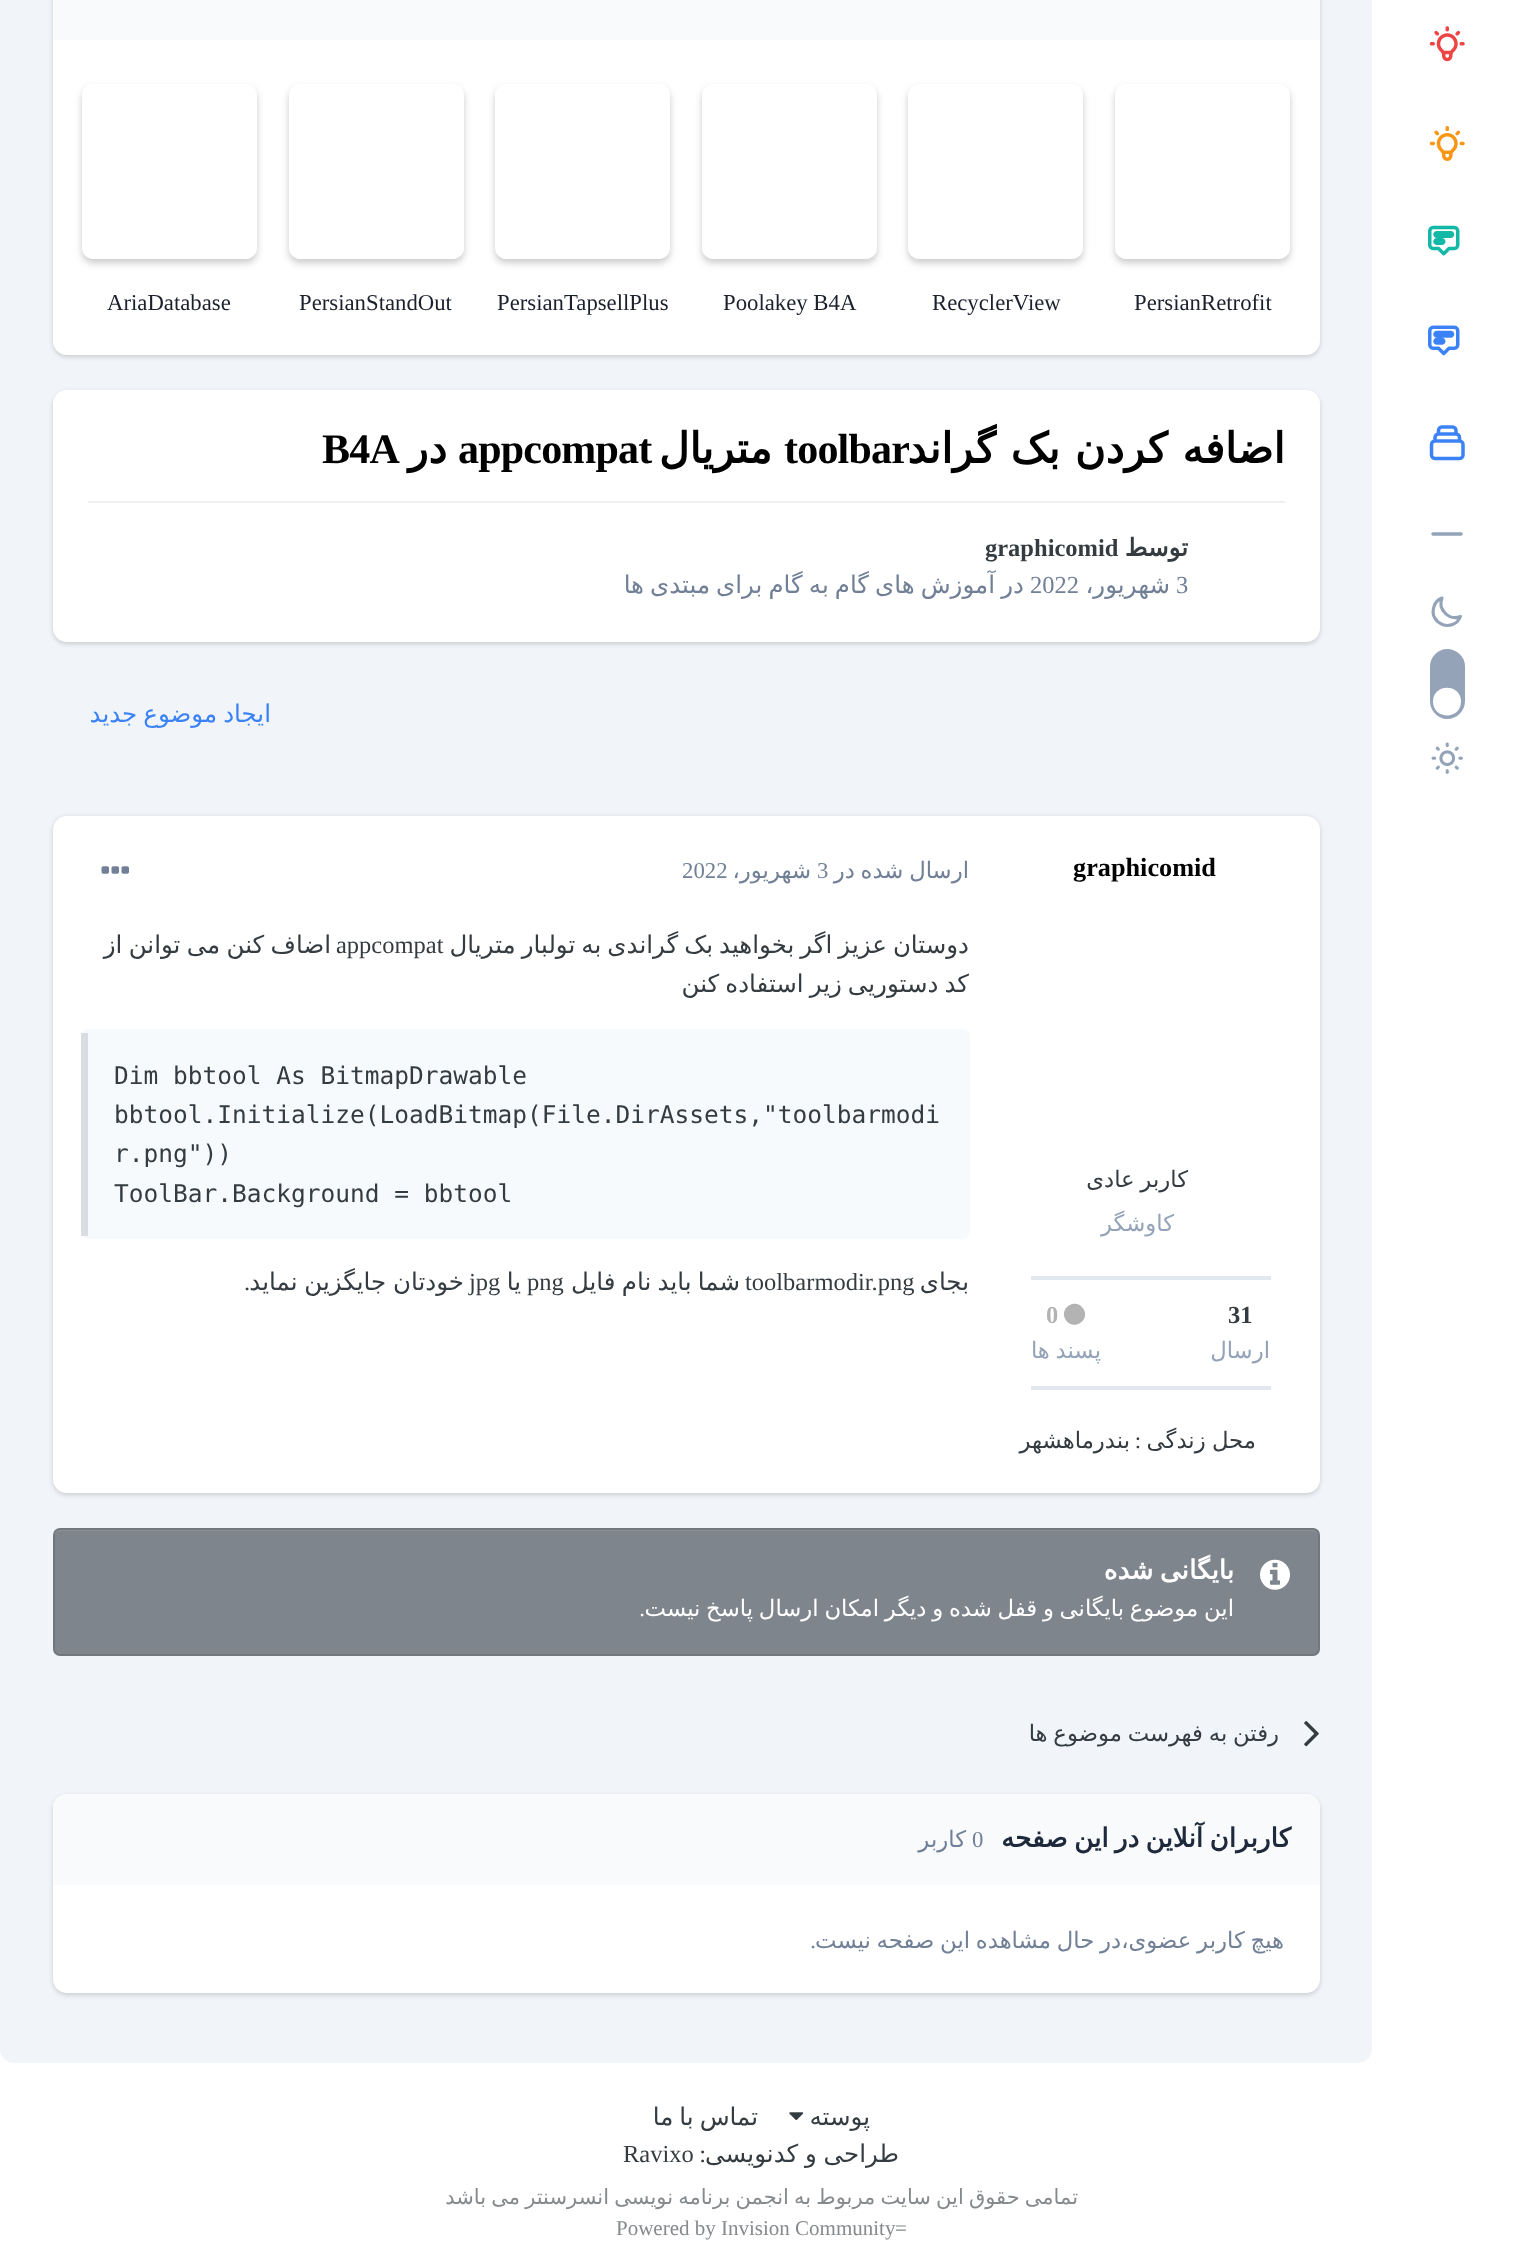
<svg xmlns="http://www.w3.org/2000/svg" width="1522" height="2245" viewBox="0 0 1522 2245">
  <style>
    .t1 { font: 22.75px Liberation Serif; fill: #1a202c; }
    .t2 { font: bold 42px DejaVu Sans; letter-spacing: -0.8px; direction: rtl; fill: #000; }
    .t3 { font: bold 42px Liberation Serif; letter-spacing: -0.8px; fill: #000; }
    .t4 { font: bold 24.5px DejaVu Sans; direction: rtl; fill: #353c41; }
    .t5 { font: bold 24.5px Liberation Serif; fill: #353c41; }
    .t6 { font: 24.5px Liberation Serif; fill: #718096; }
    .t7 { font: 24.5px DejaVu Sans; direction: rtl; fill: #718096; }
    .t8 { font: 24.5px DejaVu Sans; direction: rtl; fill: #3b82f6; }
    .t9 { font: bold 26.25px Liberation Serif; fill: #000; }
    .t10 { font: 22.75px DejaVu Sans; direction: rtl; fill: #353c41; }
    .t11 { font: 22.75px DejaVu Sans; direction: rtl; fill: #94a3b8; }
    .t12 { font: bold 24.5px Liberation Serif; fill: #b3b3b3; }
    .t13 { font: 22.75px Liberation Serif; direction: rtl; fill: #353c41; }
    .t14 { font: 22.75px DejaVu Sans; direction: rtl; fill: #718096; }
    .t15 { font: 22.75px Liberation Serif; fill: #718096; }
    .t16 { font: 24.5px DejaVu Sans; direction: rtl; fill: #353c41; }
    .t17 { font: 24.5px Liberation Serif; fill: #353c41; }
    .t18 { font: 24.5px DejaVu Sans Mono; fill: #353c41; }
    .t19 { font: 24.5px Liberation Serif; direction: rtl; fill: #353c41; }
    .t20 { font: bold 26.25px DejaVu Sans; direction: rtl; fill: #fff; }
    .t21 { font: 22.75px DejaVu Sans; direction: rtl; fill: #fff; }
    .t22 { font: 22.75px Liberation Serif; direction: rtl; fill: #fff; }
    .t23 { font: bold 26.25px DejaVu Sans; direction: rtl; fill: #1e293b; }
    .t24 { font: 22.75px Liberation Serif; direction: rtl; fill: #718096; }
    .t25 { font: 21px DejaVu Sans; direction: rtl; fill: #868a8d; }
    .t26 { font: 21px Liberation Serif; fill: #868a8d; }
  </style>
  <defs>
    <clipPath id="clip1"><path d="M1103 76H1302V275H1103ZM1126 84H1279C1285 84 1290 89 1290 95V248C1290 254 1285 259 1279 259H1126C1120 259 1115 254 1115 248V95C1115 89 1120 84 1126 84Z" clip-rule="evenodd"/></clipPath>
    <clipPath id="clip2"><path d="M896 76H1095V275H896ZM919 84H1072C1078 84 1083 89 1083 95V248C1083 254 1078 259 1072 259H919C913 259 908 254 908 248V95C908 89 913 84 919 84Z" clip-rule="evenodd"/></clipPath>
    <clipPath id="clip3"><path d="M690 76H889V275H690ZM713 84H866C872 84 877 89 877 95V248C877 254 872 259 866 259H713C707 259 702 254 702 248V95C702 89 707 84 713 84Z" clip-rule="evenodd"/></clipPath>
    <clipPath id="clip4"><path d="M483 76H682V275H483ZM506 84H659C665 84 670 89 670 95V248C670 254 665 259 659 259H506C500 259 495 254 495 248V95C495 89 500 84 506 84Z" clip-rule="evenodd"/></clipPath>
    <clipPath id="clip5"><path d="M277 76H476V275H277ZM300 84H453C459 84 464 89 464 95V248C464 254 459 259 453 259H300C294 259 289 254 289 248V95C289 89 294 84 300 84Z" clip-rule="evenodd"/></clipPath>
    <clipPath id="clip6"><path d="M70 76H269V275H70ZM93 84H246C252 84 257 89 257 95V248C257 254 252 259 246 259H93C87 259 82 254 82 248V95C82 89 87 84 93 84Z" clip-rule="evenodd"/></clipPath>
    <clipPath id="clip7"><rect x="747" y="1717" width="532" height="33"/></clipPath>
  </defs>
  <rect width="100%" height="100%" fill="#fff"/>
  <image x="1429" y="26" width="36" height="36" href="images/1.png"/>
  <image x="1429" y="126" width="36" height="35" href="images/2.png"/>
  <image x="1428" y="225" width="32" height="31" href="images/3.png"/>
  <image x="1428" y="325" width="32" height="31" href="images/4.png"/>
  <image x="1429" y="425" width="36" height="36" href="images/5.png"/>
  <path d="M1461 534H1433" fill="none" stroke="#94a3b8" stroke-width="3.5" stroke-linecap="round" stroke-linejoin="round"/>
  <path d="M1460.5 616.5C1449 621 1437.5 609.5 1442 598C1438 599.5 1435 603 1434 606.5C1428 624 1453.5 633.5 1460.5 616.5Z" fill="none" stroke="#94a3b8" stroke-width="3.1" stroke-linecap="round" stroke-linejoin="round"/>
  <path d="M1430 701V666C1430 657 1438 649 1447 649C1457 649 1465 657 1465 666V701C1465 711 1457 719 1447 719C1438 719 1430 711 1430 701Z" fill="#94a3b8"/>
  <path d="M1433 701.5C1433 683 1461 683 1461 701.5C1461 720 1433 720 1433 701.5Z" fill="#fff"/>
  <image x="1431" y="742" width="32" height="32" href="images/6.png"/>
  <rect x="0" y="-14" width="1372" height="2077" rx="14" fill="#f1f5f9"/>
  <rect x="53" y="-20" width="1267" height="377" rx="14" fill="#0000000f" filter="blur(2px)"/>
  <rect x="53" y="-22" width="1267" height="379" rx="14" fill="#0000001a" filter="blur(2.5px)"/>
  <rect x="53" y="-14" width="1267" height="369" rx="14" fill="#fff"/>
  <rect x="53" y="0" width="1267" height="40" fill="#f8fafc"/>
  <g clip-path="url(#clip1)">
    <rect x="1115" y="88" width="175" height="175" rx="11" fill="#00000033" filter="blur(3.5px)"/>
  </g>
  <text x="1134" y="310" class="t1">PersianRetrofit</text>
  <g clip-path="url(#clip2)">
    <rect x="908" y="88" width="175" height="175" rx="11" fill="#00000033" filter="blur(3.5px)"/>
  </g>
  <text x="932" y="310" class="t1">RecyclerView</text>
  <g clip-path="url(#clip3)">
    <rect x="702" y="88" width="175" height="175" rx="11" fill="#00000033" filter="blur(3.5px)"/>
  </g>
  <text x="723" y="310" class="t1">Poolakey B4A</text>
  <g clip-path="url(#clip4)">
    <rect x="495" y="88" width="175" height="175" rx="11" fill="#00000033" filter="blur(3.5px)"/>
  </g>
  <text x="497" y="310" class="t1">PersianTapsellPlus</text>
  <g clip-path="url(#clip5)">
    <rect x="289" y="88" width="175" height="175" rx="11" fill="#00000033" filter="blur(3.5px)"/>
  </g>
  <text x="299" y="310" class="t1">PersianStandOut</text>
  <g clip-path="url(#clip6)">
    <rect x="82" y="88" width="175" height="175" rx="11" fill="#00000033" filter="blur(3.5px)"/>
  </g>
  <text x="107" y="310" class="t1">AriaDatabase</text>
  <rect x="53" y="392" width="1267" height="252" rx="14" fill="#0000000f" filter="blur(2px)"/>
  <rect x="53" y="392" width="1267" height="252" rx="14" fill="#0000001a" filter="blur(2.5px)"/>
  <rect x="53" y="390" width="1267" height="252" rx="14" fill="#fff"/>
  <text x="1285" y="463" word-spacing="1.5" class="t2">اضافه کردن بک گراند</text>
  <text x="784" y="463" class="t3">toolbar</text>
  <text x="772" y="463" class="t2">متریال</text>
  <text x="458" y="463" class="t3">appcompat</text>
  <text x="447" y="463" class="t2">در</text>
  <text x="322" y="463" class="t3">B4A</text>
  <rect x="88" y="501" width="1197" height="2" fill="#efeff0"/>
  <text x="1188" y="556" class="t4">توسط</text>
  <text x="985" y="556" class="t5">graphicomid</text>
  <text x="1176" y="593" class="t6">3</text>
  <text x="1170" y="593" class="t7">شهریور،</text>
  <text x="1030" y="593" class="t6">2022</text>
  <text x="1024" y="593" class="t7">در</text>
  <text x="995" y="593" word-spacing="-1.75" class="t7">آموزش های گام به گام برای مبتدی ها</text>
  <text x="271" y="722" word-spacing="-1.75" class="t8">ایجاد موضوع جدید</text>
  <rect x="53" y="817" width="1267" height="678" rx="14" fill="#0000000f" filter="blur(2px)"/>
  <rect x="53" y="817" width="1267" height="678" rx="14" fill="#0000001a" filter="blur(2.5px)"/>
  <rect x="53" y="816" width="1267" height="677" rx="14" fill="#fff"/>
  <text x="1073" y="876" class="t9">graphicomid</text>
  <text x="1188" y="1187" word-spacing="-1.5" class="t10">کاربر عادی</text>
  <text x="1174" y="1231" class="t11">کاوشگر</text>
  <rect x="1031" y="1276" width="240" height="4" fill="#e2e8f0"/>
  <rect x="1031" y="1386" width="240" height="4" fill="#e2e8f0"/>
  <text x="1228" y="1323" class="t5">31</text>
  <text x="1270" y="1358" class="t11">ارسال</text>
  <path d="M1083.5 1309C1090.5 1321 1072.5 1331.5 1065.5 1319.5C1058.5 1307.5 1076.5 1297 1083.5 1309Z" fill="#b3b3b3"/>
  <text x="1046" y="1323" class="t12">0</text>
  <text x="1101" y="1358" word-spacing="-1.5" class="t11">پسند ها</text>
  <text x="1256" y="1448" word-spacing="-1" class="t10">محل زندگی</text>
  <text x="1141" y="1448" class="t13">:</text>
  <text x="1130" y="1448" class="t10">بندرماهشهر</text>
  <text x="969" y="878" word-spacing="-1.5" class="t14">ارسال شده در</text>
  <text x="817" y="878" class="t15">3</text>
  <text x="811" y="878" class="t14">شهریور،</text>
  <text x="682" y="878" class="t15">2022</text>
  <image x="101" y="866" width="28" height="8" href="images/7.png"/>
  <text x="969" y="953" word-spacing="-1.75" class="t16">دوستان عزیز اگر بخواهید بک گراندی به تولبار متریال</text>
  <text x="336" y="953" class="t17">appcompat</text>
  <text x="331" y="953" word-spacing="-1.5" class="t16">اضاف کنن می توانن از</text>
  <text x="969" y="992" word-spacing="-1.75" class="t16">کد دستوریی زیر استفاده کنن</text>
  <rect x="81" y="1029" width="889" height="210" rx="7" fill="#f7fafc"/>
  <rect x="81" y="1033" width="7" height="203" fill="#2d374826"/>
  <text x="114" y="1084" class="t18">Dim bbtool As BitmapDrawable</text>
  <text x="114" y="1123" class="t18">bbtool.Initialize(LoadBitmap(File.DirAssets,"toolbarmodi</text>
  <text x="114" y="1162" class="t18">r.png"))</text>
  <text x="114" y="1202" class="t18">ToolBar.Background = bbtool</text>
  <text x="969" y="1290" class="t16">بجای</text>
  <text x="745" y="1290" class="t17">toolbarmodir.png</text>
  <text x="740" y="1290" word-spacing="-1.5" class="t16">شما باید نام فایل</text>
  <text x="527" y="1290" class="t17">png</text>
  <text x="521" y="1290" class="t16">یا</text>
  <text x="469" y="1290" class="t17">jpg</text>
  <text x="464" y="1290" word-spacing="-1" class="t16">خودتان جایگزین نماید</text>
  <text x="250" y="1290" class="t19">.</text>
  <rect x="53" y="1528" width="1267" height="128" rx="7" fill="#7f858d"/>
  <path d="M60 1531H1312C1315 1531 1318 1534 1318 1536C1318 1533 1316 1530 1313 1530H59C56 1530 54 1533 54 1536C54 1534 57 1531 60 1531Z" fill="#8c9198"/>
  <rect x="54" y="1529" width="1265" height="126" rx="6" fill="none" stroke="#0000001a" stroke-width="2"/>
  <image x="1260" y="1559" width="30" height="31" href="images/8.png"/>
  <text x="1234" y="1579" word-spacing="-2" class="t20">بایگانی شده</text>
  <text x="1234" y="1616" word-spacing="-1.5" class="t21">این موضوع بایگانی و قفل شده و دیگر امکان ارسال پاسخ نیست</text>
  <text x="645" y="1616" class="t22">.</text>
  <image x="1304" y="1721" width="15" height="26" href="images/9.png"/>
  <g clip-path="url(#clip7)">
    <text x="1279" y="1741" word-spacing="-1.5" class="t10">رفتن به فهرست موضوع ها</text>
  </g>
  <rect x="53" y="1796" width="1267" height="199" rx="14" fill="#0000000f" filter="blur(2px)"/>
  <rect x="53" y="1796" width="1267" height="199" rx="14" fill="#0000001a" filter="blur(2.5px)"/>
  <rect x="53" y="1794" width="1267" height="199" rx="14" fill="#fff"/>
  <path d="M67 1794H1306C1313.5 1794 1320 1800.5 1320 1808V1885H53V1808C53 1800.5 59.5 1794 67 1794Z" fill="#f8fafc"/>
  <text x="1291" y="1847" word-spacing="-2" class="t23">کاربران آنلاین در این صفحه</text>
  <text x="972" y="1847" class="t15">0</text>
  <text x="966" y="1847" class="t14">کاربر</text>
  <text x="1284" y="1948" word-spacing="-1.5" class="t14">هیچ کاربر عضوی،در حال مشاهده این صفحه نیست</text>
  <text x="816" y="1948" class="t24">.</text>
  <text x="870" y="2125" class="t16">پوسته</text>
  <image x="789" y="2112" width="15" height="9" href="images/10.png"/>
  <text x="758" y="2125" word-spacing="-1.75" class="t16">تماس با ما</text>
  <text x="899" y="2162" word-spacing="-1" class="t16">طراحی و کدنویسی</text>
  <text x="706" y="2162" class="t19">:</text>
  <text x="623" y="2162" class="t17">Ravixo</text>
  <text x="1078" y="2204" word-spacing="-1.5" class="t25">تمامی حقوق این سایت مربوط به انجمن برنامه نویسی انسرسنتر می باشد</text>
  <text x="895" y="2235" class="t26">=</text>
  <text x="616" y="2235" class="t26">Powered by Invision Community</text>
</svg>
